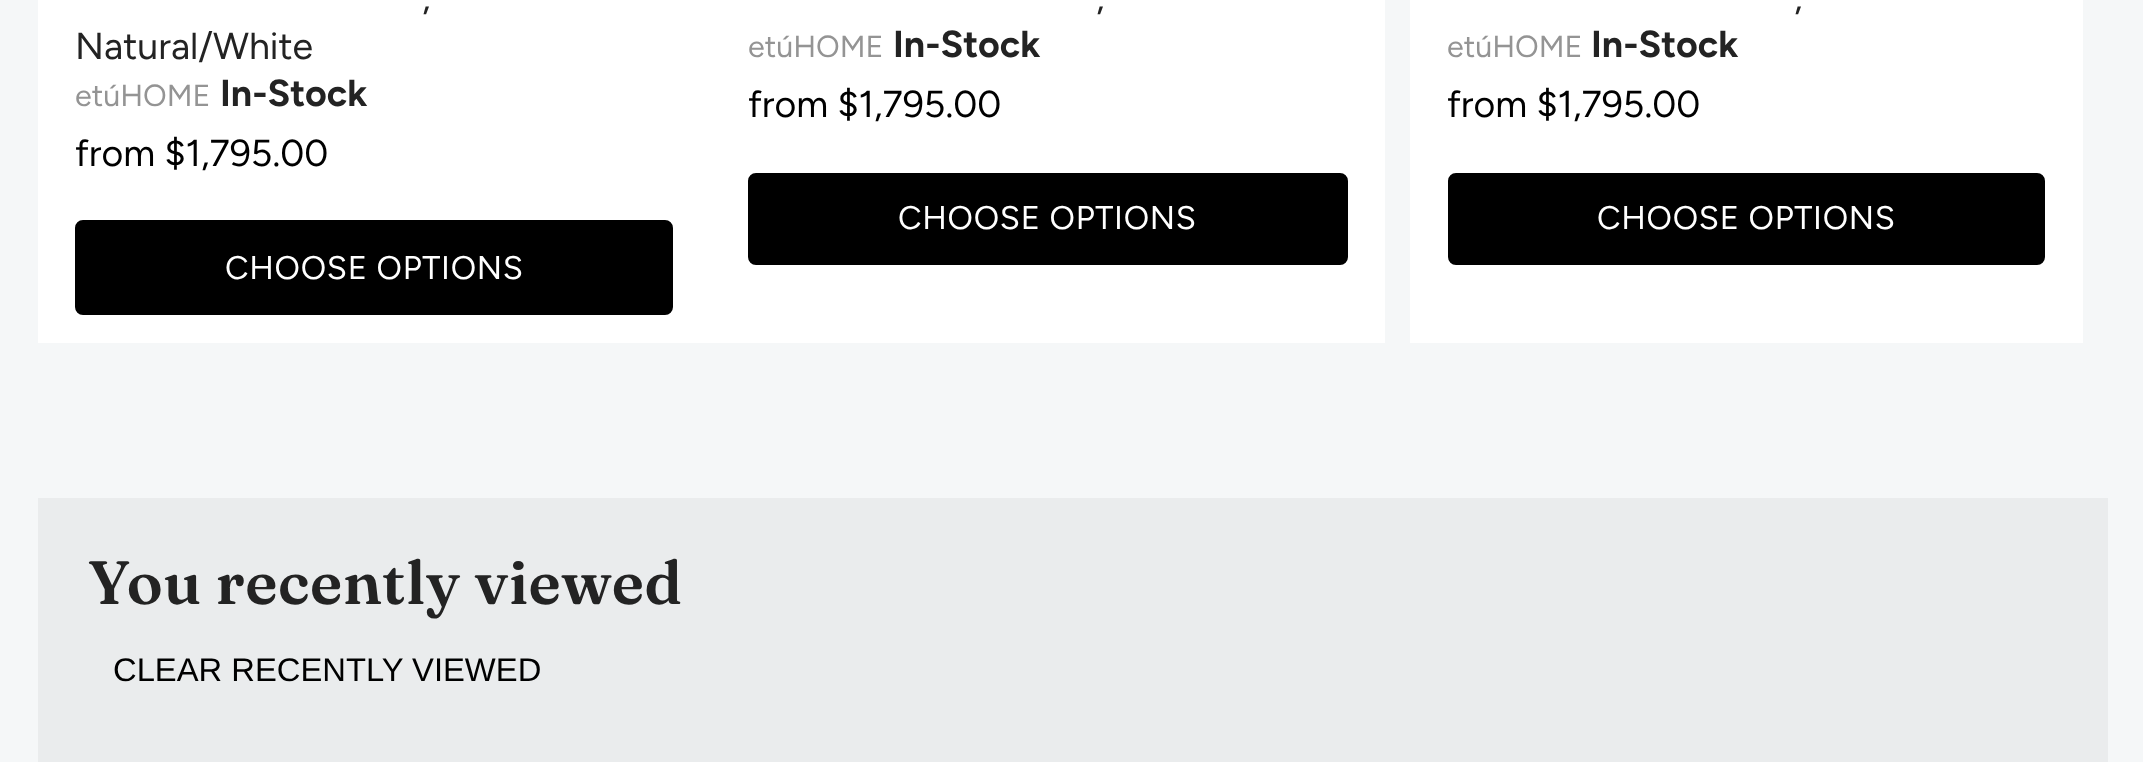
<svg xmlns="http://www.w3.org/2000/svg" width="2143" height="762" viewBox="0 0 2143 762">
  <style>
    .t1 { font: 37.5px Figtree; fill: #232323; }
    .t2 { font: 30.5px Figtree; fill: #949494; }
    .t3 { font: bold 37.5px Figtree; fill: #232323; }
    .t4 { font: 37.5px Figtree; fill: #000; }
    .t5 { font: 32.75px Figtree; letter-spacing: 0.7px; fill: #fff; }
    .t6 { font: 600 61px Fraunces; letter-spacing: 0.6px; fill: #232323; }
    .t7 { font: 32.75px Liberation Sans; fill: #000; }
  </style>
  <rect width="100%" height="100%" fill="#f5f7f8"/>
  <rect x="38" y="0" width="1347" height="343" fill="#fff"/>
  <text x="422" y="10" class="t1">,</text>
  <text x="75" y="59" class="t1">Natural/White</text>
  <text x="75" y="106" class="t2">etúHOME</text>
  <text x="220" y="106" class="t3">In-Stock</text>
  <text x="75" y="166" class="t4">from $1,795.00</text>
  <rect x="76.5" y="221.5" width="595" height="92" rx="6.5" fill="#000" stroke="#000" stroke-width="3"/>
  <text x="225" y="279" class="t5">CHOOSE OPTIONS</text>
  <text x="1096" y="10" class="t1">,</text>
  <text x="748" y="57" class="t2">etúHOME</text>
  <text x="893" y="57" class="t3">In-Stock</text>
  <text x="748" y="117" class="t4">from $1,795.00</text>
  <rect x="749.5" y="174.5" width="597" height="89" rx="6.5" fill="#000" stroke="#000" stroke-width="3"/>
  <text x="898" y="229" class="t5">CHOOSE OPTIONS</text>
  <rect x="1410" y="0" width="673" height="343" fill="#fff"/>
  <text x="1794" y="10" class="t1">,</text>
  <text x="1447" y="57" class="t2">etúHOME</text>
  <text x="1591" y="57" class="t3">In-Stock</text>
  <text x="1447" y="117" class="t4">from $1,795.00</text>
  <rect x="1449.5" y="174.5" width="594" height="89" rx="6.5" fill="#000" stroke="#000" stroke-width="3"/>
  <text x="1597" y="229" class="t5">CHOOSE OPTIONS</text>
  <rect x="38" y="498" width="2070" height="264" fill="#eaeced"/>
  <text x="88" y="604" class="t6">You recently viewed</text>
  <text x="113" y="681" class="t7">CLEAR RECENTLY VIEWED</text>
</svg>
